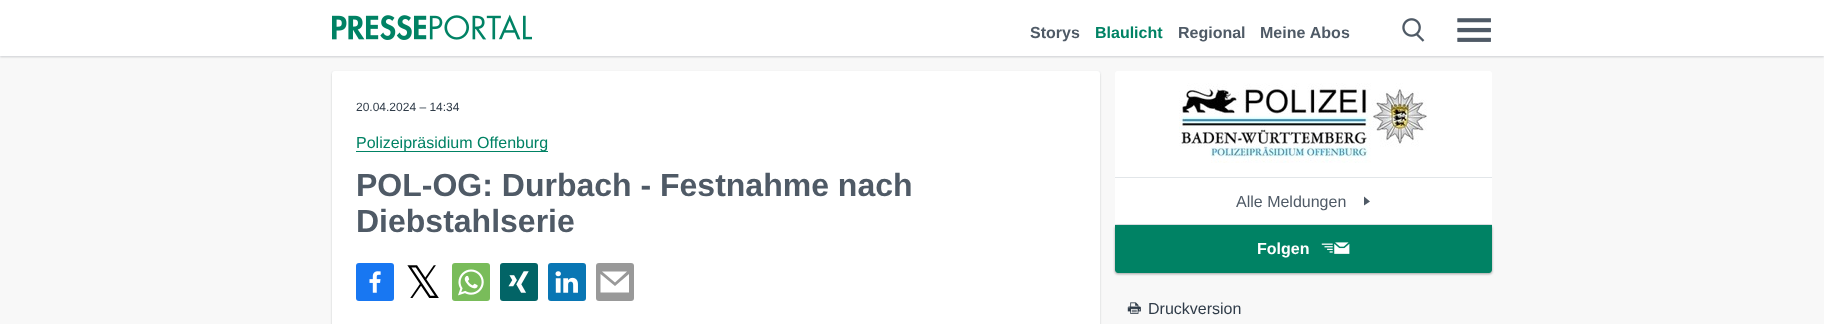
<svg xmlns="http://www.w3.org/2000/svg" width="1824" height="324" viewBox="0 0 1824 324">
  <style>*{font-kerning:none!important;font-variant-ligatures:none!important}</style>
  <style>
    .t1 { font: bold 16px Liberation Sans; fill: #4f5a66; }
    .t2 { font: bold 16px Liberation Sans; fill: #008264; }
    .t3 { font: 12px Liberation Sans; fill: #303c49; }
    .t4 { font: 16px Liberation Sans; fill: #008264; }
    .t5 { font: bold 32px Liberation Sans; fill: #4f5a66; }
    .t6 { font: 45px DejaVu Sans; fill: #000; }
    .t7 { font: 16px Liberation Sans; fill: #4f5a66; }
    .t8 { font: bold 16px Liberation Sans; fill: #fff; }
    .t9 { font: 16px Liberation Sans; fill: #303c49; }
  </style>
  <rect width="100%" height="100%" fill="#f8f8f8"/>
  <rect x="0" y="1" width="1824" height="56" fill="#4f5a6629" filter="blur(1px)"/>
  <rect x="0" y="1" width="1824" height="56" fill="#4f5a661a" filter="blur(1px)"/>
  <rect x="0" y="0" width="1824" height="56" fill="#fff"/>
  <image x="332" y="14" width="200" height="26" href="images/1.png"/>
  <text x="1030" y="38" class="t1">Storys</text>
  <text x="1095" y="38" class="t2">Blaulicht</text>
  <text x="1178" y="38" class="t1">Regional</text>
  <text x="1260" y="38" class="t1">Meine Abos</text>
  <image x="1402" y="18" width="23" height="24" href="images/2.png"/>
  <image x="1457" y="18" width="34" height="24" href="images/3.png"/>
  <rect x="332" y="72" width="768" height="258" rx="3" fill="#4f5a6629" filter="blur(1px)"/>
  <rect x="332" y="72" width="768" height="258" rx="3" fill="#4f5a661a" filter="blur(1px)"/>
  <rect x="332" y="71" width="768" height="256" rx="3" fill="#fff"/>
  <text x="356" y="111" class="t3">20.04.2024 – 14:34</text>
  <rect x="356" y="151" width="192" height="1" fill="#008264"/>
  <text x="356" y="148" class="t4">Polizeipräsidium Offenburg</text>
  <text x="356" y="196" class="t5">POL-OG: Durbach - Festnahme nach</text>
  <text x="356" y="232" class="t5">Diebstahlserie</text>
  <rect x="356" y="263" width="38" height="38" rx="3" fill="#1877f2"/>
  <image x="369" y="271" width="12" height="22" href="images/4.png"/>
  <text x="405" y="298" class="t6">𝕏</text>
  <rect x="452" y="263" width="38" height="38" rx="3" fill="#79bc5a"/>
  <image x="458" y="269" width="26" height="27" href="images/5.png"/>
  <rect x="500" y="263" width="38" height="38" rx="3" fill="#026466"/>
  <image x="508" y="271" width="21" height="22" href="images/6.png"/>
  <rect x="548" y="263" width="38" height="38" rx="3" fill="#0976b4"/>
  <image x="555" y="271" width="23" height="22" href="images/7.png"/>
  <rect x="596" y="263" width="38" height="38" rx="3" fill="#999"/>
  <path d="M629 292.5H600.5V274L615 286L629 274ZM615 282.5L602 271.5H627Z" fill="#fff"/>
  <rect x="1115" y="71" width="377" height="202" rx="3" fill="#fff"/>
  <image x="1179" y="83" width="248" height="80" href="images/8.png"/>
  <rect x="1115" y="177" width="377" height="1" fill="#e2e6e9"/>
  <rect x="1115" y="224" width="377" height="1" fill="#e2e6e9"/>
  <text x="1236" y="207" class="t7">Alle Meldungen</text>
  <path d="M1364 205.5V196.5L1370 201.5Z" fill="#4f5a66"/>
  <rect x="1115" y="226" width="377" height="48" rx="3" fill="#0000003d" filter="blur(1px)"/>
  <rect x="1115" y="226" width="377" height="48" rx="3" fill="#0000001f" filter="blur(1.5px)"/>
  <path d="M1115 225H1492V270C1492 271.5 1490.5 273 1489 273H1118C1116.5 273 1115 271.5 1115 270Z" fill="#008264"/>
  <text x="1257" y="254" class="t8">Folgen</text>
  <image x="1321" y="242" width="29" height="12" href="images/9.png"/>
  <image x="1127" y="302" width="14" height="12" href="images/10.png"/>
  <text x="1148" y="314" class="t9">Druckversion</text>
</svg>
